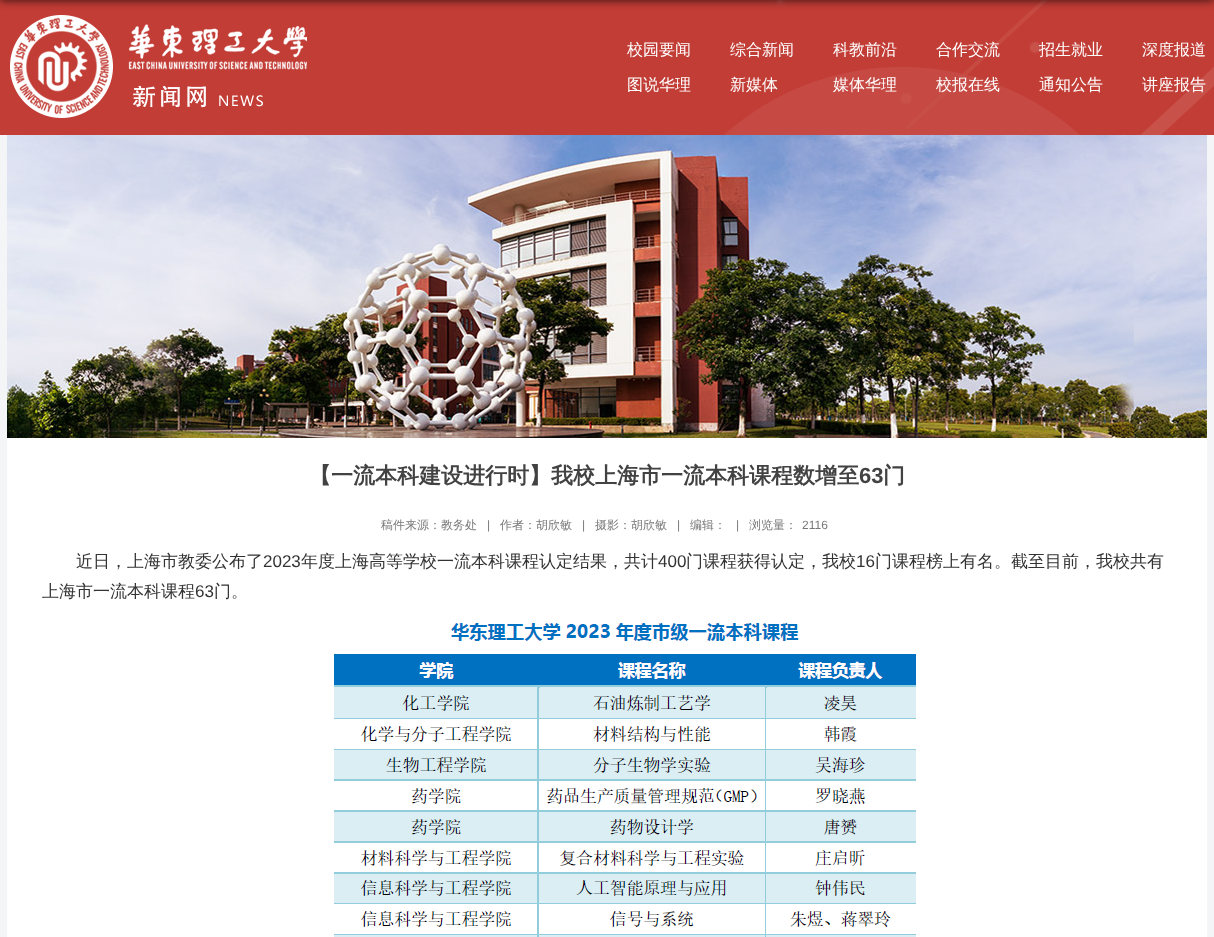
<svg xmlns="http://www.w3.org/2000/svg" width="1214" height="937" viewBox="0 0 1214 937">
  <style>
    .t1 { font: 500 16px WenQuanYi Zen Hei; fill: #fff; }
    .t2 { font: bold 22px WenQuanYi Zen Hei; fill: #424242; }
    .t3 { font: bold 22px Liberation Sans; fill: #424242; }
    .t4 { font: 500 12px WenQuanYi Zen Hei; fill: #787878; }
    .t5 { font: 12px Liberation Sans; fill: #787878; }
    .t6 { font: 500 17px WenQuanYi Zen Hei; fill: #333; }
    .t7 { font: 17px Liberation Sans; fill: #333; }
  </style>
  <rect width="100%" height="100%" fill="#f4f5f6"/>
  <image x="0" y="0" width="1214" height="135" href="images/1.png"/>
  <image x="10" y="15" width="297" height="103" href="images/2.png"/>
  <rect x="0" y="-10" width="1214" height="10" fill="#000000cc" filter="blur(5px)"/>
  <text x="627" y="55" class="t1">校园要闻</text>
  <text x="730" y="55" class="t1">综合新闻</text>
  <text x="833" y="55" class="t1">科教前沿</text>
  <text x="936" y="55" class="t1">合作交流</text>
  <text x="1039" y="55" class="t1">招生就业</text>
  <text x="1142" y="55" class="t1">深度报道</text>
  <text x="627" y="90" class="t1">图说华理</text>
  <text x="730" y="90" class="t1">新媒体</text>
  <text x="833" y="90" class="t1">媒体华理</text>
  <text x="936" y="90" class="t1">校报在线</text>
  <text x="1039" y="90" class="t1">通知公告</text>
  <text x="1142" y="90" class="t1">讲座报告</text>
  <image x="7" y="135" width="1200" height="303" href="images/3.png"/>
  <rect x="7" y="438" width="1200" height="499" fill="#fff"/>
  <text x="309" y="483" class="t2">【一流本科建设进行时】我校上海市一流本科课程数增至</text>
  <text x="859" y="483" class="t3">63</text>
  <text x="883" y="483" class="t2">门</text>
  <text x="381" y="529" class="t4">稿件来源：教务处</text>
  <text x="487" y="529" class="t5">|</text>
  <text x="500" y="529" class="t4">作者：胡欣敏</text>
  <text x="582" y="529" class="t5">|</text>
  <text x="595" y="529" class="t4">摄影：胡欣敏</text>
  <text x="677" y="529" class="t5">|</text>
  <text x="690" y="529" class="t4">编辑：</text>
  <text x="736" y="529" class="t5">|</text>
  <text x="749" y="529" class="t4">浏览量：</text>
  <text x="802" y="529" class="t5">2116</text>
  <text x="76" y="567" class="t6">近日，上海市教委公布了</text>
  <text x="263" y="567" class="t7">2023</text>
  <text x="301" y="567" class="t6">年度上海高等学校一流本科课程认定结果，共计</text>
  <text x="658" y="567" class="t7">400</text>
  <text x="686" y="567" class="t6">门课程获得认定，我校</text>
  <text x="856" y="567" class="t7">16</text>
  <text x="875" y="567" class="t6">门课程榜上有名。截至目前，我校共有</text>
  <text x="42" y="597" class="t6">上海市一流本科课程</text>
  <text x="195" y="597" class="t7">63</text>
  <text x="214" y="597" class="t6">门。</text>
  <image x="334" y="623" width="582" height="314" href="images/4.png"/>
</svg>
